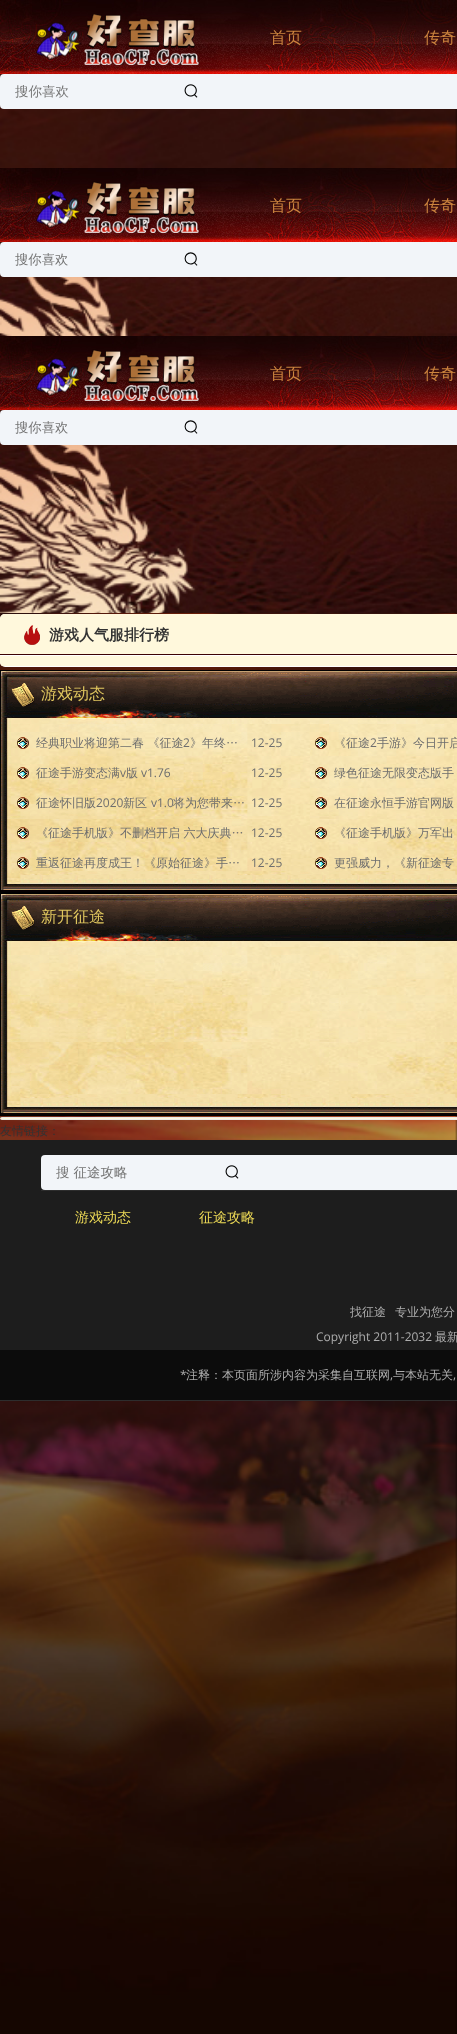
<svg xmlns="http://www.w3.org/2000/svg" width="457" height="2034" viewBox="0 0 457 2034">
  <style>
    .t1 { font: 500 16px WenQuanYi Zen Hei; fill: #cc843e; }
    .t2 { font: 500 13.5px WenQuanYi Zen Hei; fill: #757575; }
    .t3 { font: bold 15px WenQuanYi Zen Hei; fill: #333; }
    .t4 { font: 500 16px WenQuanYi Zen Hei; fill: #dfc65e; }
    .t5 { font: 500 12px WenQuanYi Zen Hei; fill: #6e6e6e; }
    .t6 { font: 12px Open Sans; fill: #6e6e6e; }
    .t7 { font: 500 12px WenQuanYi Zen Hei; fill: #333; }
    .t8 { font: 500 14px WenQuanYi Zen Hei; fill: #edda56; }
    .t9 { font: 500 12px WenQuanYi Zen Hei; fill: #adadad; }
    .t10 { font: 12px Open Sans; fill: #adadad; }
  </style>
  <defs>
    <clipPath id="clip1"><rect x="0" y="614" width="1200" height="53" rx="5"/></clipPath>
  </defs>
  <rect width="100%" height="100%" fill="#0d0000"/>
  <image x="0" y="74" width="457" height="1960" href="images/1.png"/>
  <image x="0" y="0" width="457" height="74" href="images/2.png"/>
  <image x="36" y="14" width="164" height="51" href="images/3.png"/>
  <text x="270" y="43" class="t1">首页</text>
  <text x="424" y="43" class="t1">传奇</text>
  <rect x="0" y="74" width="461" height="35" rx="4" fill="#f2f5f9"/>
  <text x="15" y="96" class="t2">搜你喜欢</text>
  <image x="184" y="84" width="14" height="14" href="images/4.png"/>
  <image x="0" y="168" width="457" height="445" href="images/5.png"/>
  <rect x="0" y="614" width="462" height="53" rx="5" fill="#fff"/>
  <path d="M5 614H457C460 614 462 616 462 619V655H0V619C0 616 2 614 5 614Z" fill="#fff8dc"/>
  <rect x="0" y="654" width="457" height="1" fill="#3d0303"/>
  <image x="24" y="625" width="16" height="20" href="images/6.png"/>
  <text x="49" y="640" class="t3">游戏人气服排行榜</text>
  <g clip-path="url(#clip1)">
    <rect x="0" y="656" width="457" height="10" fill="#fff8dc"/>
  </g>
  <image x="1" y="671" width="456" height="221" href="images/7.png"/>
  <rect x="0.5" y="670.5" width="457" height="222" fill="none" stroke="#010000"/>
  <image x="11" y="683" width="24" height="24" href="images/8.png"/>
  <text x="41" y="699" class="t4">游戏动态</text>
  <image x="17" y="737" width="12" height="12" href="images/9.png"/>
  <text x="36" y="747" class="t5">经典职业将迎第二春 《征途</text>
  <text x="183" y="747" class="t6">2</text>
  <text x="190" y="747" class="t5">》年终…</text>
  <text x="251" y="747" class="t6">12-25</text>
  <image x="315" y="737" width="12" height="12" href="images/10.png"/>
  <text x="334" y="747" class="t5">《征途</text>
  <text x="370" y="747" class="t6">2</text>
  <text x="377" y="747" class="t5">手游》今日开启</text>
  <image x="17" y="767" width="12" height="12" href="images/11.png"/>
  <text x="36" y="777" class="t5">征途手游变态满</text>
  <text x="120" y="777" class="t6">v</text>
  <text x="126" y="777" class="t5">版</text>
  <text x="141" y="777" class="t6">v1.76</text>
  <text x="251" y="777" class="t6">12-25</text>
  <image x="315" y="767" width="12" height="12" href="images/12.png"/>
  <text x="334" y="777" class="t5">绿色征途无限变态版手</text>
  <image x="17" y="797" width="12" height="12" href="images/13.png"/>
  <text x="36" y="807" class="t5">征途怀旧版</text>
  <text x="96" y="807" class="t6">2020</text>
  <text x="123" y="807" class="t5">新区</text>
  <text x="151" y="807" class="t6">v1.0</text>
  <text x="173" y="807" class="t5">将为您带来…</text>
  <text x="251" y="807" class="t6">12-25</text>
  <image x="315" y="797" width="12" height="12" href="images/14.png"/>
  <text x="334" y="807" class="t5">在征途永恒手游官网版</text>
  <image x="17" y="827" width="12" height="12" href="images/15.png"/>
  <text x="36" y="837" class="t5">《征途手机版》不删档开启 六大庆典…</text>
  <text x="251" y="837" class="t6">12-25</text>
  <image x="315" y="827" width="12" height="12" href="images/16.png"/>
  <text x="334" y="837" class="t5">《征途手机版》万军出</text>
  <image x="17" y="857" width="12" height="12" href="images/17.png"/>
  <text x="36" y="867" class="t5">重返征途再度成王！《原始征途》手…</text>
  <text x="251" y="867" class="t6">12-25</text>
  <image x="315" y="857" width="12" height="12" href="images/18.png"/>
  <text x="334" y="867" class="t5">更强威力，《新征途专</text>
  <image x="1" y="894" width="456" height="221" href="images/7.png"/>
  <rect x="0.5" y="893.5" width="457" height="222" fill="none" stroke="#010000"/>
  <image x="11" y="906" width="24" height="24" href="images/8.png"/>
  <text x="41" y="922" class="t4">新开征途</text>
  <rect x="0.5" y="1117.5" width="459" height="2" rx="1" fill="#fff8dc" stroke="#eaeaea"/>
  <text x="0" y="1135" class="t7">友情链接：</text>
  <rect x="0" y="1140" width="457" height="210" fill="#1d1d1d"/>
  <rect x="0" y="1400" width="457" height="1" fill="#2d2d2d"/>
  <rect x="41" y="1155" width="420" height="35" rx="4" fill="#f2f5f9"/>
  <text x="56" y="1177" class="t2">搜 征途攻略</text>
  <image x="225" y="1165" width="14" height="14" href="images/4.png"/>
  <rect x="41" y="1190" width="416" height="1" fill="#2d2d2d"/>
  <text x="75" y="1222" class="t8">游戏动态</text>
  <text x="199" y="1222" class="t8">征途攻略</text>
  <text x="350" y="1316" class="t9">找征途</text>
  <text x="395" y="1316" class="t9">专业为您分</text>
  <text x="316" y="1341" class="t10">Copyright 2011-2032</text>
  <text x="435" y="1341" class="t9">最新</text>
  <rect x="0" y="1350" width="457" height="50" fill="#0c0c0c"/>
  <text x="180" y="1379" class="t10">*</text>
  <text x="186" y="1379" class="t9">注释：本页面所涉内容为采集自互联网</text>
  <text x="393" y="1379" class="t9">与本站无关</text>
  <text x="390" y="1379" class="t10">,</text>
  <text x="453" y="1379" class="t10">,</text>
</svg>
